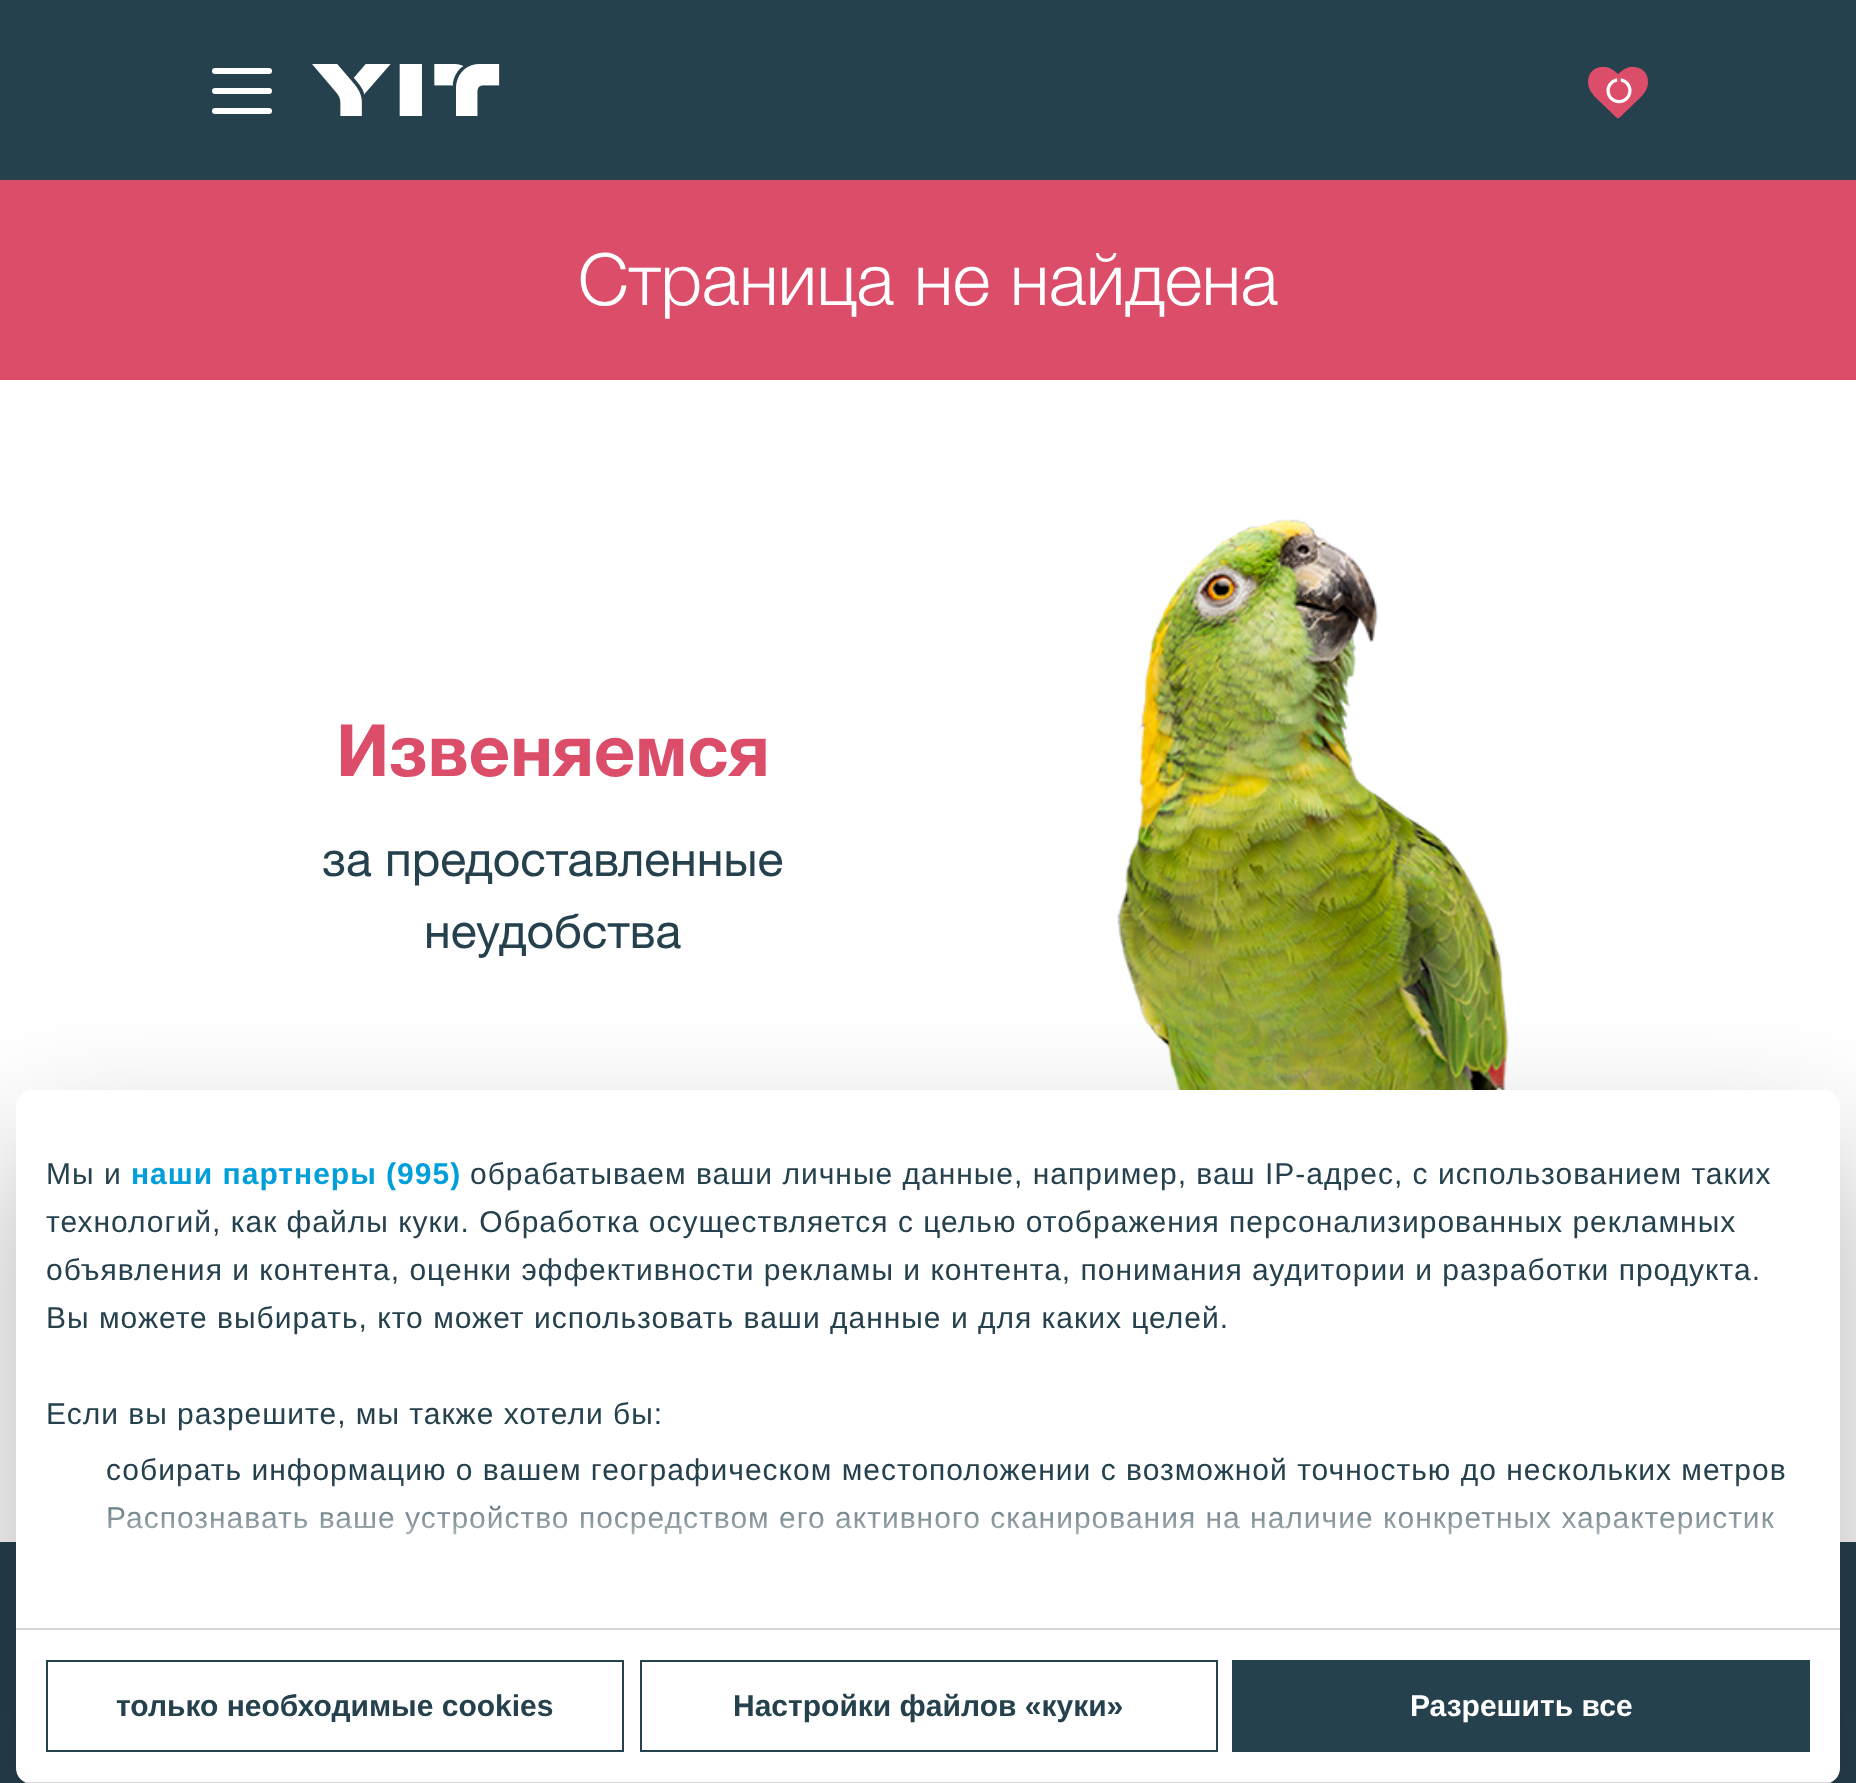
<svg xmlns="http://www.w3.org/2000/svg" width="1856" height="1783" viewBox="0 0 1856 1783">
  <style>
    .t1 { font: 300 72px 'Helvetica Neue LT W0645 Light'; fill: #fff; }
    .t2 { font: bold 72px 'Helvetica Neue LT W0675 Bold'; fill: #db4d69; }
    .t3 { font: 48px 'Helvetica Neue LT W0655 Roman'; fill: #25414d; }
    .t4 { font: 30px Liberation Sans; letter-spacing: 1px; fill: #25414d; }
    .t5 { font: bold 30px Liberation Sans; letter-spacing: 1px; fill: #009fda; }
    .t6 { font: bold 30px Liberation Sans; fill: #25414d; }
    .t7 { font: bold 30px Liberation Sans; fill: #fff; }
  </style>
  <defs>
    <linearGradient id="g1" gradientUnits="userSpaceOnUse" x1="915" y1="1628" x2="915" y2="1478"><stop offset="0" stop-color="#fff"/><stop offset="0.5" stop-color="#fff" stop-opacity="0.8"/><stop offset="1" stop-color="#fff" stop-opacity="0"/></linearGradient>
    <clipPath id="clip1"><rect x="16" y="1090" width="1824" height="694" rx="16"/></clipPath>
  </defs>
  <rect width="100%" height="100%" fill="#fff"/>
  <rect x="0" y="0" width="1856" height="180" fill="#25414d"/>
  <rect x="212" y="88" width="60" height="6" rx="3" fill="#fff"/>
  <rect x="212" y="68" width="60" height="6" rx="3" fill="#fff"/>
  <rect x="212" y="108" width="60" height="6" rx="3" fill="#fff"/>
  <image x="312" y="64" width="188" height="52" href="images/1.png"/>
  <image x="1588" y="66" width="60" height="53" href="images/2.png"/>
  <image x="1606" y="78" width="26" height="26" href="images/3.png"/>
  <rect x="0" y="180" width="1856" height="200" fill="#db4d69"/>
  <text x="578" y="305" class="t1">Страница не найдена</text>
  <text x="336" y="776" class="t2">Извеняемся</text>
  <text x="322" y="876" class="t3">за предоставленные</text>
  <text x="424" y="948" class="t3">неудобства</text>
  <image x="1117" y="519" width="392" height="571" href="images/4.png"/>
  <rect x="0" y="1542" width="1856" height="241" fill="#25414d"/>
  <rect x="16" y="1154" width="1824" height="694" rx="16" fill="#0000004d" filter="blur(68px)"/>
  <rect x="16" y="1090" width="1824" height="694" rx="16" fill="#fff"/>
  <rect x="16" y="1628" width="1824" height="2" fill="#d6d6d6"/>
  <text x="46" y="1184" class="t4">Мы и</text>
  <text x="131" y="1184" class="t5">наши партнеры (995)</text>
  <text x="470" y="1184" class="t4">обрабатываем ваши личные данные, например, ваш IP-адрес, с использованием таких</text>
  <text x="46" y="1232" class="t4">технологий, как файлы куки. Обработка осуществляется с целью отображения персонализированных рекламных</text>
  <text x="46" y="1280" class="t4">объявления и контента, оценки эффективности рекламы и контента, понимания аудитории и разработки продукта.</text>
  <text x="46" y="1328" class="t4">Вы можете выбирать, кто может использовать ваши данные и для каких целей.</text>
  <text x="46" y="1424" class="t4">Если вы разрешите, мы также хотели бы:</text>
  <text x="106" y="1480" class="t4">собирать информацию о вашем географическом местоположении с возможной точностью до нескольких метров</text>
  <text x="106" y="1528" class="t4">Распознавать ваше устройство посредством его активного сканирования на наличие конкретных характеристик</text>
  <rect x="108" y="1480" width="1666" height="55" fill="url(#g1)"/>
  <g clip-path="url(#clip1)">
    <rect x="16" y="1782" width="1824" height="1" fill="#d6d6d6"/>
  </g>
  <rect x="47" y="1661" width="576" height="90" fill="none" stroke="#25414d" stroke-width="2"/>
  <text x="116" y="1716" class="t6">только необходимые cookies</text>
  <rect x="641" y="1661" width="576" height="90" fill="none" stroke="#25414d" stroke-width="2"/>
  <text x="733" y="1716" class="t6">Настройки файлов «куки»</text>
  <rect x="1232" y="1660" width="578" height="92" fill="#25414d"/>
  <text x="1410" y="1716" class="t7">Разрешить все</text>
</svg>
